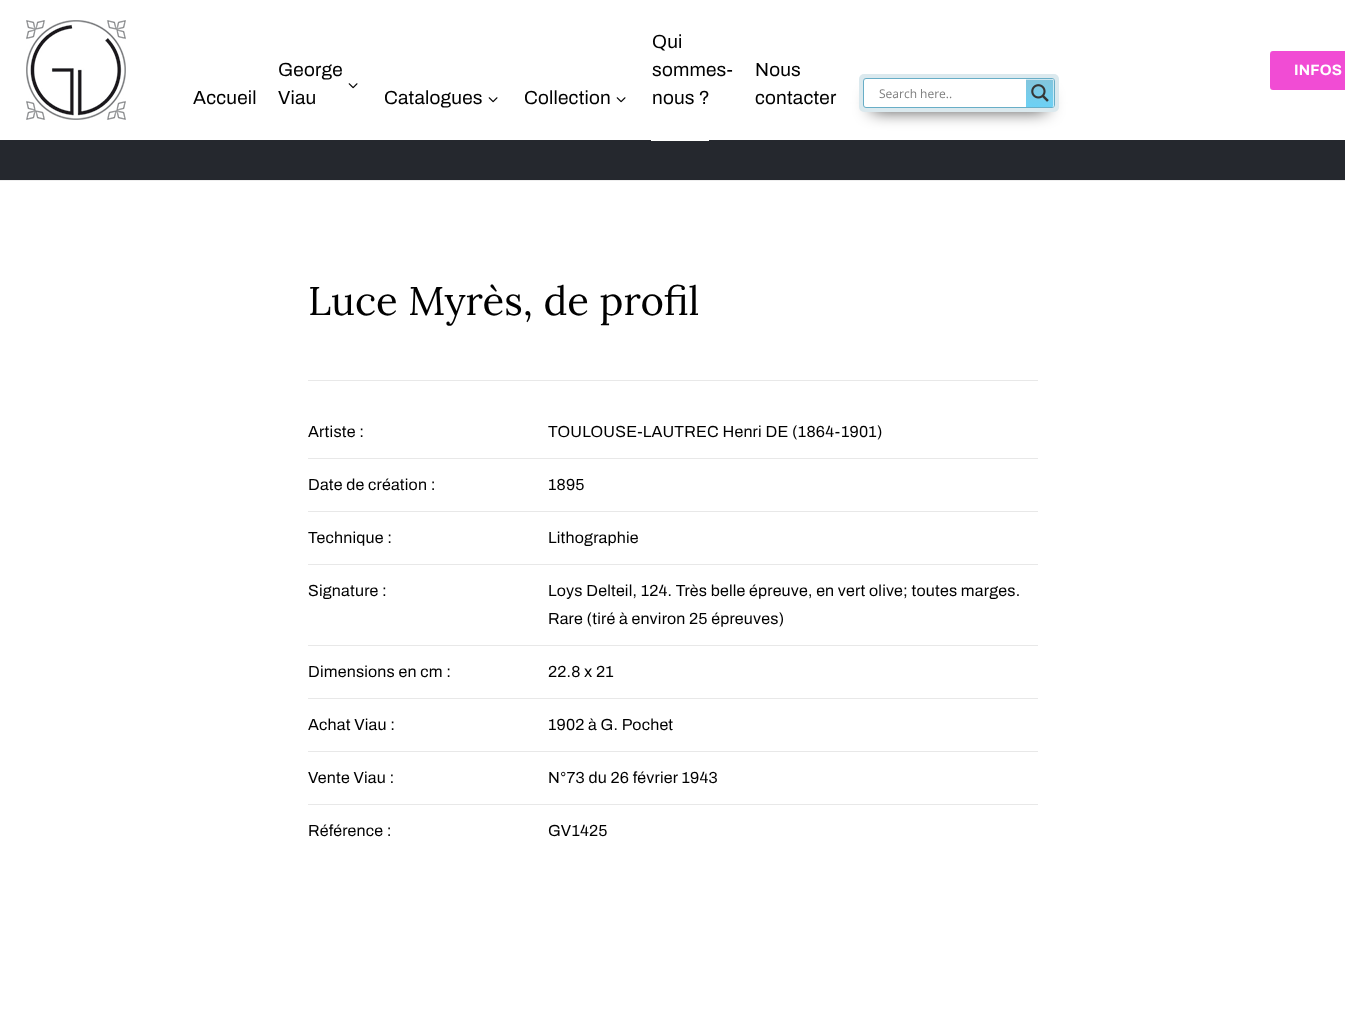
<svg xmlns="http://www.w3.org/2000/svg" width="1345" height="1014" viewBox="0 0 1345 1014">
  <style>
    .t1 { font: 19px Archivo; letter-spacing: 0.2px; fill: #000; }
    .t2 { font: 12px Open Sans; fill: #7d7d7d; }
    .t3 { font: bold 15px Archivo; letter-spacing: 0.2px; fill: #fff; }
    .t4 { font: 40px Lora; fill: #000; }
    .t5 { font: 16px Archivo; letter-spacing: 0.2px; fill: #000; }
  </style>
  <defs>
    <linearGradient id="g1" gradientUnits="userSpaceOnUse" x1="1040" y1="79" x2="1040" y2="107"><stop offset="0" stop-color="#84c5dc"/><stop offset="1" stop-color="#6cd1f5"/></linearGradient>
    <clipPath id="clip1"><rect x="1026" y="79" width="28" height="28"/></clipPath>
  </defs>
  <rect width="100%" height="100%" fill="#fff"/>
  <image x="26" y="20" width="100" height="100" href="images/1.png"/>
  <text x="193" y="104" class="t1">Accueil</text>
  <text x="278" y="76" class="t1">George</text>
  <image x="348" y="83" width="10" height="6" href="images/2.png"/>
  <text x="278" y="104" class="t1">Viau</text>
  <text x="384" y="104" class="t1">Catalogues</text>
  <image x="488" y="97" width="10" height="6" href="images/2.png"/>
  <text x="524" y="104" class="t1">Collection</text>
  <image x="616" y="97" width="10" height="6" href="images/2.png"/>
  <text x="652" y="48" class="t1">Qui</text>
  <text x="652" y="76" class="t1">sommes-</text>
  <rect x="0" y="140" width="1345" height="40" fill="#25282e"/>
  <rect x="651.5" y="83.5" width="57" height="57" fill="none" stroke="#fff"/>
  <text x="652" y="104" class="t1">nous ?</text>
  <text x="755" y="76" class="t1">Nous</text>
  <text x="755" y="104" class="t1">contacter</text>
  <rect x="872" y="97" width="174" height="12" fill="#000" filter="blur(9px)"/>
  <rect x="859" y="74" width="200" height="38" rx="5" fill="#dbe9ee"/>
  <rect x="863.5" y="78.5" width="191" height="29" rx="2.5" fill="#fff" stroke="#68aec7"/>
  <text x="879" y="98" class="t2">Search here..</text>
  <path d="M1026 79H1052C1053 79 1054 80 1054 81V105C1054 106 1053 107 1052 107H1026Z" fill="url(#g1)"/>
  <g clip-path="url(#clip1)">
    <path d="M1025 80V107H927V79H1053L1054 81V106L1053 107V80Z" fill="#ffffff9c"/>
  </g>
  <image x="1031" y="84" width="18" height="18" href="images/3.png"/>
  <rect x="1270" y="51" width="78" height="39" rx="3" fill="#f14cd4"/>
  <text x="1294" y="75" class="t3">INFOS</text>
  <rect x="0" y="180" width="1345" height="1" fill="#eee"/>
  <text x="308" y="315" class="t4">Luce Myrès, de profil</text>
  <rect x="308" y="380" width="730" height="1" fill="#e8e8e8"/>
  <rect x="308" y="458" width="730" height="1" fill="#e8e8e8"/>
  <text x="308" y="437" class="t5">Artiste :</text>
  <text x="548" y="437" class="t5">TOULOUSE-LAUTREC Henri DE (1864-1901)</text>
  <rect x="308" y="511" width="730" height="1" fill="#e8e8e8"/>
  <text x="308" y="490" class="t5">Date de création :</text>
  <text x="548" y="490" class="t5">1895</text>
  <rect x="308" y="564" width="730" height="1" fill="#e8e8e8"/>
  <text x="308" y="543" class="t5">Technique :</text>
  <text x="548" y="543" class="t5">Lithographie</text>
  <rect x="308" y="645" width="730" height="1" fill="#e8e8e8"/>
  <text x="308" y="596" class="t5">Signature :</text>
  <text x="548" y="596" class="t5">Loys Delteil, 124. Très belle épreuve, en vert olive; toutes marges.</text>
  <text x="548" y="624" class="t5">Rare (tiré à environ 25 épreuves)</text>
  <rect x="308" y="698" width="730" height="1" fill="#e8e8e8"/>
  <text x="308" y="677" class="t5">Dimensions en cm :</text>
  <text x="548" y="677" class="t5">22.8 x 21</text>
  <rect x="308" y="751" width="730" height="1" fill="#e8e8e8"/>
  <text x="308" y="730" class="t5">Achat Viau :</text>
  <text x="548" y="730" class="t5">1902 à G. Pochet</text>
  <rect x="308" y="804" width="730" height="1" fill="#e8e8e8"/>
  <text x="308" y="783" class="t5">Vente Viau :</text>
  <text x="548" y="783" class="t5">N°73 du 26 février 1943</text>
  <text x="308" y="836" class="t5">Référence :</text>
  <text x="548" y="836" class="t5">GV1425</text>
</svg>
